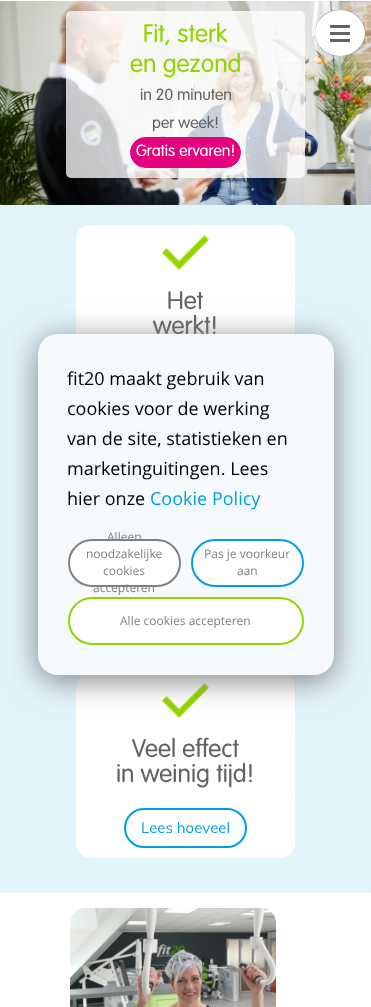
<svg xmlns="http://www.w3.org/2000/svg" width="371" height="1007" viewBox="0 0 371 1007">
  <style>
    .t1 { font: 300 25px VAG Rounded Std; fill: #92d400; }
    .t2 { font: 300 16px VAG Rounded Std; fill: #616365; }
    .t3 { font: 300 16px VAG Rounded Std; fill: #fff; }
    .t4 { font: 300 25px VAG Rounded Std; fill: #616365; }
    .t5 { font: 15px Muli; fill: #009fe3; }
    .t6 { font: 18px Open Sans; fill: #000; }
    .t7 { font: 18px Open Sans; fill: #009fe3; }
    .t8 { font: 12px Open Sans; fill: #808080; }
  </style>
  <rect width="100%" height="100%" fill="#fff"/>
  <image x="0" y="1" width="371" height="204" href="images/1.png"/>
  <rect x="66" y="11" width="239" height="167" rx="5" fill="#ffffffc2"/>
  <text x="143" y="42" class="t1">Fit, sterk</text>
  <text x="130" y="72" class="t1">en gezond</text>
  <text x="140" y="100" class="t2">in 20 minuten</text>
  <text x="152" y="128" class="t2">per week!</text>
  <rect x="130.5" y="137.5" width="110" height="30" rx="15" fill="#e5007d" stroke="#e5007d"/>
  <text x="136" y="156" class="t3">Gratis ervaren!</text>
  <rect x="0" y="205" width="371" height="688" rx="1" fill="#e1f4fc"/>
  <path d="M91 225H280C288.5 225 295 231.5 295 240V279C295 279.5 294.5 280 294 280H77C76.5 280 76 279.5 76 279V240C76 231.5 82.5 225 91 225Z" fill="#fff"/>
  <image x="162" y="235" width="47" height="35" href="images/2.png"/>
  <rect x="76" y="280" width="219" height="70" rx="1" fill="#fff"/>
  <text x="167" y="309" class="t4">Het</text>
  <text x="153" y="334" class="t4">werkt!</text>
  <path d="M91 673H280C288.5 673 295 679.5 295 688V727C295 727.5 294.5 728 294 728H77C76.5 728 76 727.5 76 727V688C76 679.5 82.5 673 91 673Z" fill="#fff"/>
  <image x="162" y="683" width="47" height="35" href="images/3.png"/>
  <rect x="76" y="728" width="219" height="70" rx="1" fill="#fff"/>
  <text x="132" y="757" class="t4">Veel effect</text>
  <text x="116" y="782" class="t4">in weinig tijd!</text>
  <path d="M77 798H294C294.5 798 295 798.5 295 799V843C295 851.5 288.5 858 280 858H91C82.5 858 76 851.5 76 843V799C76 798.5 76.5 798 77 798Z" fill="#fff"/>
  <rect x="125" y="809" width="121" height="38" rx="19" fill="none" stroke="#009fe3" stroke-width="2"/>
  <text x="141" y="833" class="t5">Lees hoeveel</text>
  <rect x="315" y="13" width="46" height="46" rx="23" fill="#0000000d" filter="blur(2.5px)"/>
  <rect x="315" y="10" width="50" height="46" rx="23" fill="#808080" filter="blur(0.5px)"/>
  <ellipse cx="340" cy="33" rx="25" ry="23" fill="#fff"/>
  <rect x="330" y="32" width="20" height="3" fill="#616365"/>
  <rect x="330" y="25" width="20" height="3" fill="#616365"/>
  <rect x="330" y="39" width="20" height="3" fill="#616365"/>
  <rect x="38" y="339" width="296" height="341" rx="20" fill="#808080" filter="blur(15px)"/>
  <rect x="38" y="334" width="296" height="341" rx="20" fill="#f6f9fb"/>
  <text x="67" y="385" class="t6">fit20 maakt gebruik van</text>
  <text x="67" y="415" class="t6">cookies voor de werking</text>
  <text x="67" y="445" class="t6">van de site, statistieken en</text>
  <text x="67" y="475" class="t6">marketinguitingen. Lees</text>
  <text x="67" y="505" class="t6">hier onze</text>
  <text x="150" y="505" class="t7">Cookie Policy</text>
  <rect x="69" y="540" width="111" height="46" rx="23" fill="#fff" stroke="#808080" stroke-width="2"/>
  <text x="107" y="541" class="t8">Alleen</text>
  <text x="86" y="558" class="t8">noodzakelijke</text>
  <text x="103" y="575" class="t8">cookies</text>
  <text x="93" y="592" class="t8">accepteren</text>
  <rect x="192" y="540" width="111" height="46" rx="23" fill="#fff" stroke="#009fe3" stroke-width="2"/>
  <text x="204" y="558" class="t8">Pas je voorkeur</text>
  <text x="237" y="575" class="t8">aan</text>
  <rect x="69" y="598" width="234" height="46" rx="23" fill="#fff" stroke="#92d400" stroke-width="2"/>
  <text x="120" y="625" class="t8">Alle cookies accepteren</text>
  <image x="70" y="908" width="206" height="99" href="images/4.png"/>
</svg>
